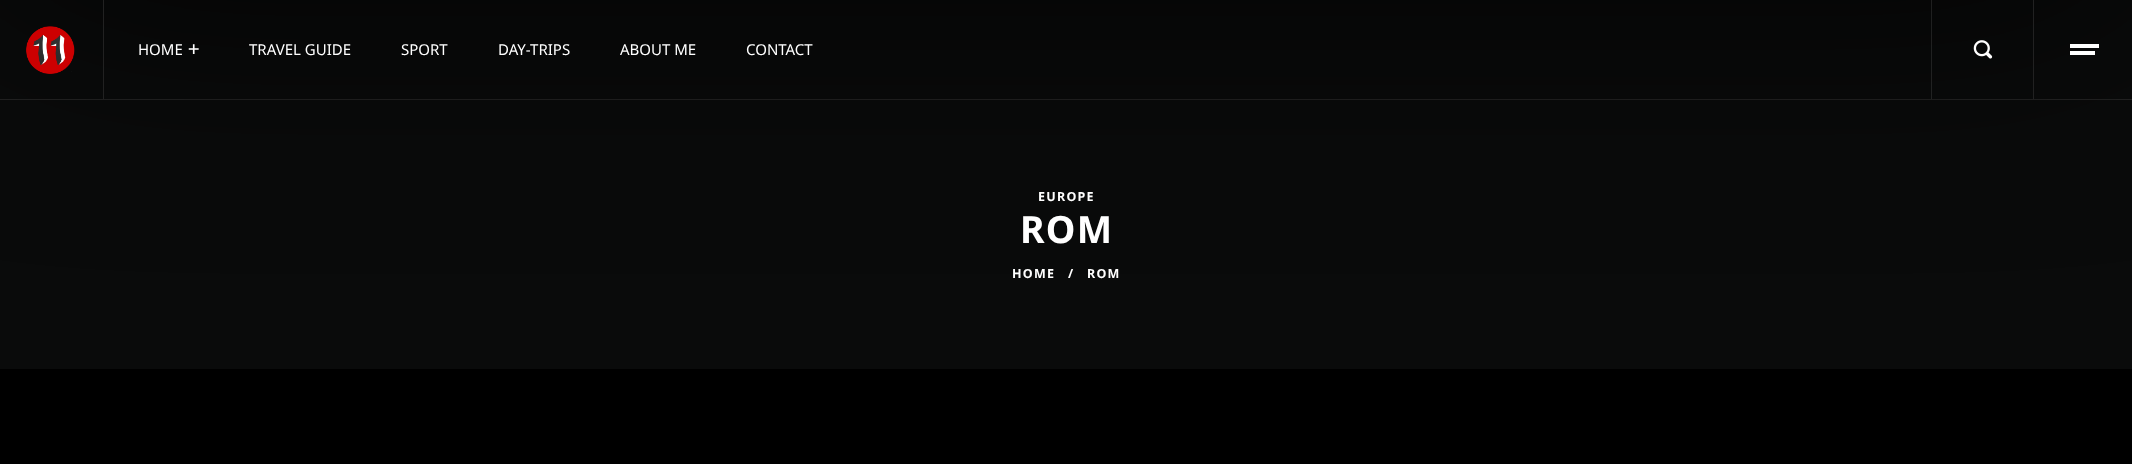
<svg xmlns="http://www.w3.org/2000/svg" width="2132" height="464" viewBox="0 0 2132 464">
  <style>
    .t1 { font: 15px Noto Sans; fill: #fff; }
    .t2 { font: 19px DejaVu Sans Mono; fill: #fff; }
    .t3 { font: bold 12.5px Noto Sans; letter-spacing: 1.25px; fill: #fff; }
    .t4 { font: bold 37.5px Noto Sans; letter-spacing: 1.25px; fill: #fff; }
    .t5 { font: bold 12.5px Noto Sans; fill: #fff; }
  </style>
  <rect width="100%" height="100%" fill="#000"/>
  <rect x="0" y="0" width="2132" height="369" fill="#0a0b0b"/>
  <rect x="0" y="99" width="2132" height="1" fill="#232323"/>
  <rect x="0" y="-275" width="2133" height="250" fill="#000" filter="blur(125px)"/>
  <image x="26" y="26" width="49" height="48" href="images/1.png"/>
  <rect x="103" y="0" width="1" height="99" fill="#212121"/>
  <text x="138" y="55" class="t1">HOME</text>
  <text x="188" y="55" class="t2">+</text>
  <text x="249" y="55" class="t1">TRAVEL GUIDE</text>
  <text x="401" y="55" class="t1">SPORT</text>
  <text x="498" y="55" class="t1">DAY-TRIPS</text>
  <text x="620" y="55" class="t1">ABOUT ME</text>
  <text x="746" y="55" class="t1">CONTACT</text>
  <rect x="1931" y="0" width="1" height="99" fill="#ffffff1a"/>
  <image x="1973" y="40" width="20" height="19" href="images/2.png"/>
  <rect x="2033" y="0" width="1" height="99" fill="#212121"/>
  <rect x="2070" y="44" width="29" height="4" fill="#fff"/>
  <rect x="2070" y="51" width="25" height="4" fill="#fff"/>
  <text x="1038" y="201" class="t3">EUROPE</text>
  <text x="1020" y="243" class="t4">ROM</text>
  <text x="1012" y="278" class="t3">HOME</text>
  <text x="1068" y="278" class="t5">/</text>
  <text x="1087" y="278" class="t3">ROM</text>
</svg>
